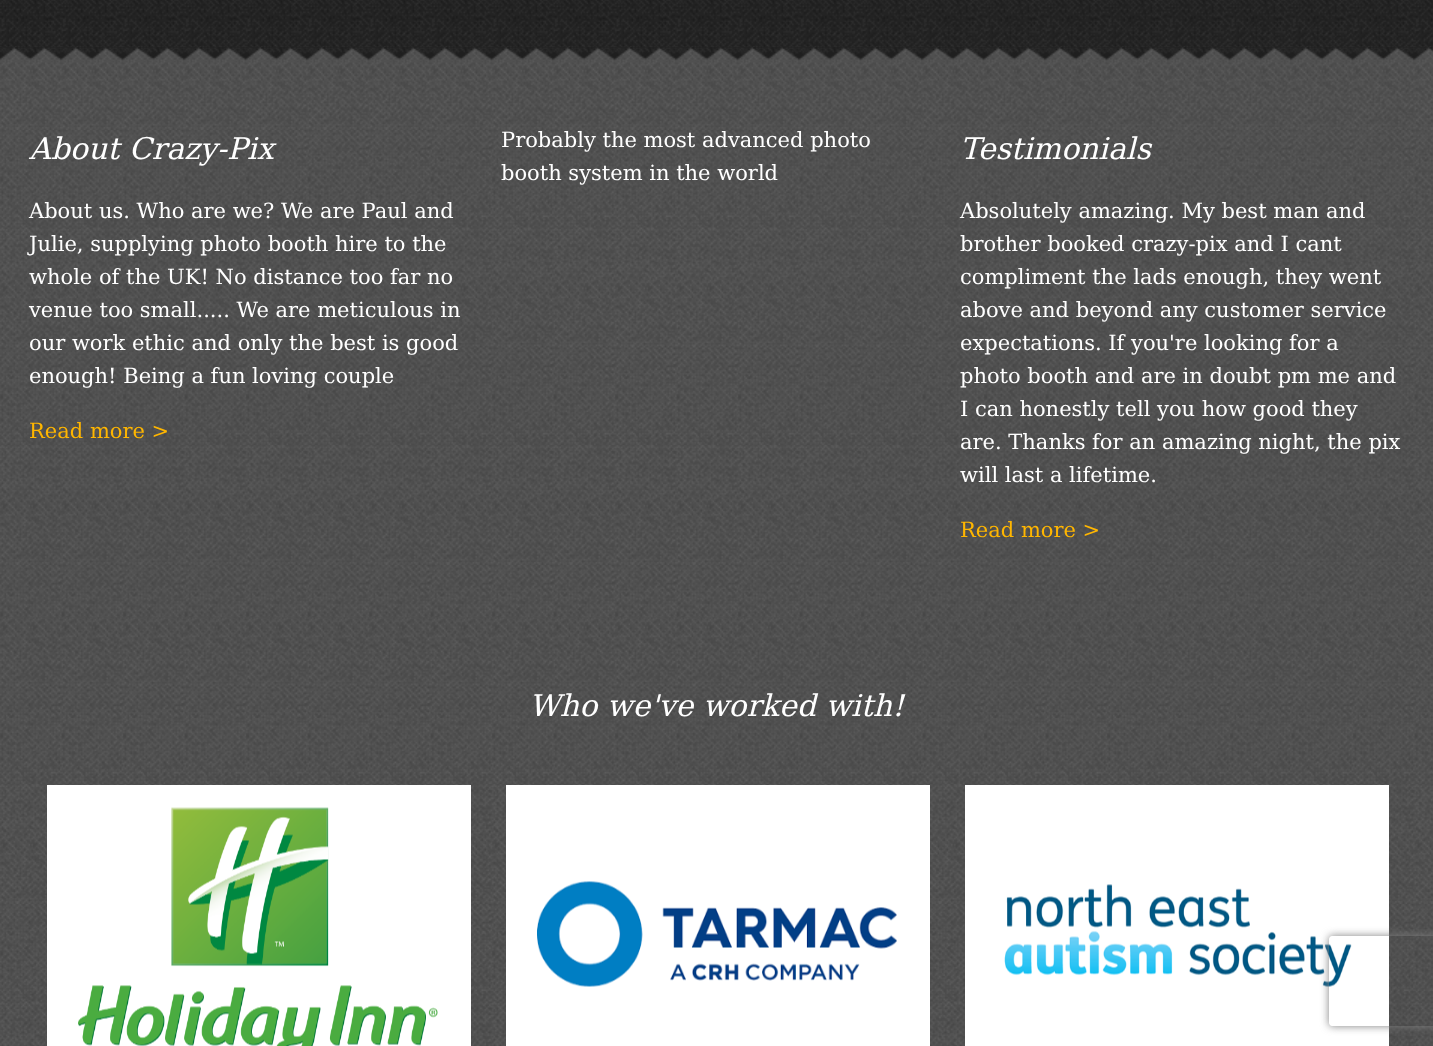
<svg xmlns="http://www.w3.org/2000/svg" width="1433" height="1046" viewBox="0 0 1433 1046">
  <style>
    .t1 { font: italic 30px DejaVu Serif; fill: #fff; }
    .t2 { font: 21px DejaVu Serif; fill: #fff; }
    .t3 { font: 21px DejaVu Serif; fill: #ffb600; }
  </style>
  <defs>
    <clipPath id="clip1"><path d="M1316 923H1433V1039H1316ZM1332 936H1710C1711.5 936 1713 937.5 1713 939V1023C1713 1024.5 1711.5 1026 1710 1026H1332C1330.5 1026 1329 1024.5 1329 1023V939C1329 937.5 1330.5 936 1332 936Z" clip-rule="evenodd"/></clipPath>
  </defs>
  <rect width="100%" height="100%" fill="#1f1f1f"/>
  <image x="0" y="0" width="1433" height="48" href="images/1.png"/>
  <image x="0" y="47" width="1433" height="10" href="images/2.png"/>
  <image x="0" y="47" width="1433" height="16" href="images/3.png"/>
  <image x="0" y="61" width="1433" height="558" href="images/4.png"/>
  <text x="29" y="159" class="t1">About Crazy-Pix</text>
  <text x="29" y="218" class="t2">About us. Who are we? We are Paul and</text>
  <text x="29" y="251" class="t2">Julie, supplying photo booth hire to the</text>
  <text x="29" y="284" class="t2">whole of the UK! No distance too far no</text>
  <text x="29" y="317" class="t2">venue too small..... We are meticulous in</text>
  <text x="29" y="350" class="t2">our work ethic and only the best is good</text>
  <text x="29" y="383" class="t2">enough! Being a fun loving couple</text>
  <text x="29" y="438" class="t3">Read more &gt;</text>
  <text x="501" y="147" class="t2">Probably the most advanced photo</text>
  <text x="501" y="180" class="t2">booth system in the world</text>
  <text x="960" y="159" class="t1">Testimonials</text>
  <text x="960" y="218" class="t2">Absolutely amazing. My best man and</text>
  <text x="960" y="251" class="t2">brother booked crazy-pix and I cant</text>
  <text x="960" y="284" class="t2">compliment the lads enough, they went</text>
  <text x="960" y="317" class="t2">above and beyond any customer service</text>
  <text x="960" y="350" class="t2">expectations. If you're looking for a</text>
  <text x="960" y="383" class="t2">photo booth and are in doubt pm me and</text>
  <text x="960" y="416" class="t2">I can honestly tell you how good they</text>
  <text x="960" y="449" class="t2">are. Thanks for an amazing night, the pix</text>
  <text x="960" y="482" class="t2">will last a lifetime.</text>
  <text x="960" y="537" class="t3">Read more &gt;</text>
  <image x="0" y="617" width="1433" height="429" href="images/5.png"/>
  <text x="529" y="716" class="t1">Who we've worked with!</text>
  <rect x="47" y="785" width="424" height="261" fill="#fff"/>
  <image x="78" y="807" width="360" height="239" href="images/6.png"/>
  <rect x="506" y="785" width="424" height="261" fill="#fff"/>
  <image x="537" y="881" width="360" height="106" href="images/7.png"/>
  <rect x="965" y="785" width="424" height="261" fill="#fff"/>
  <image x="1004" y="884" width="348" height="103" href="images/8.png"/>
  <g clip-path="url(#clip1)">
    <rect x="1329" y="936" width="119" height="90" rx="3" fill="#808080" filter="blur(4px)"/>
  </g>
</svg>
